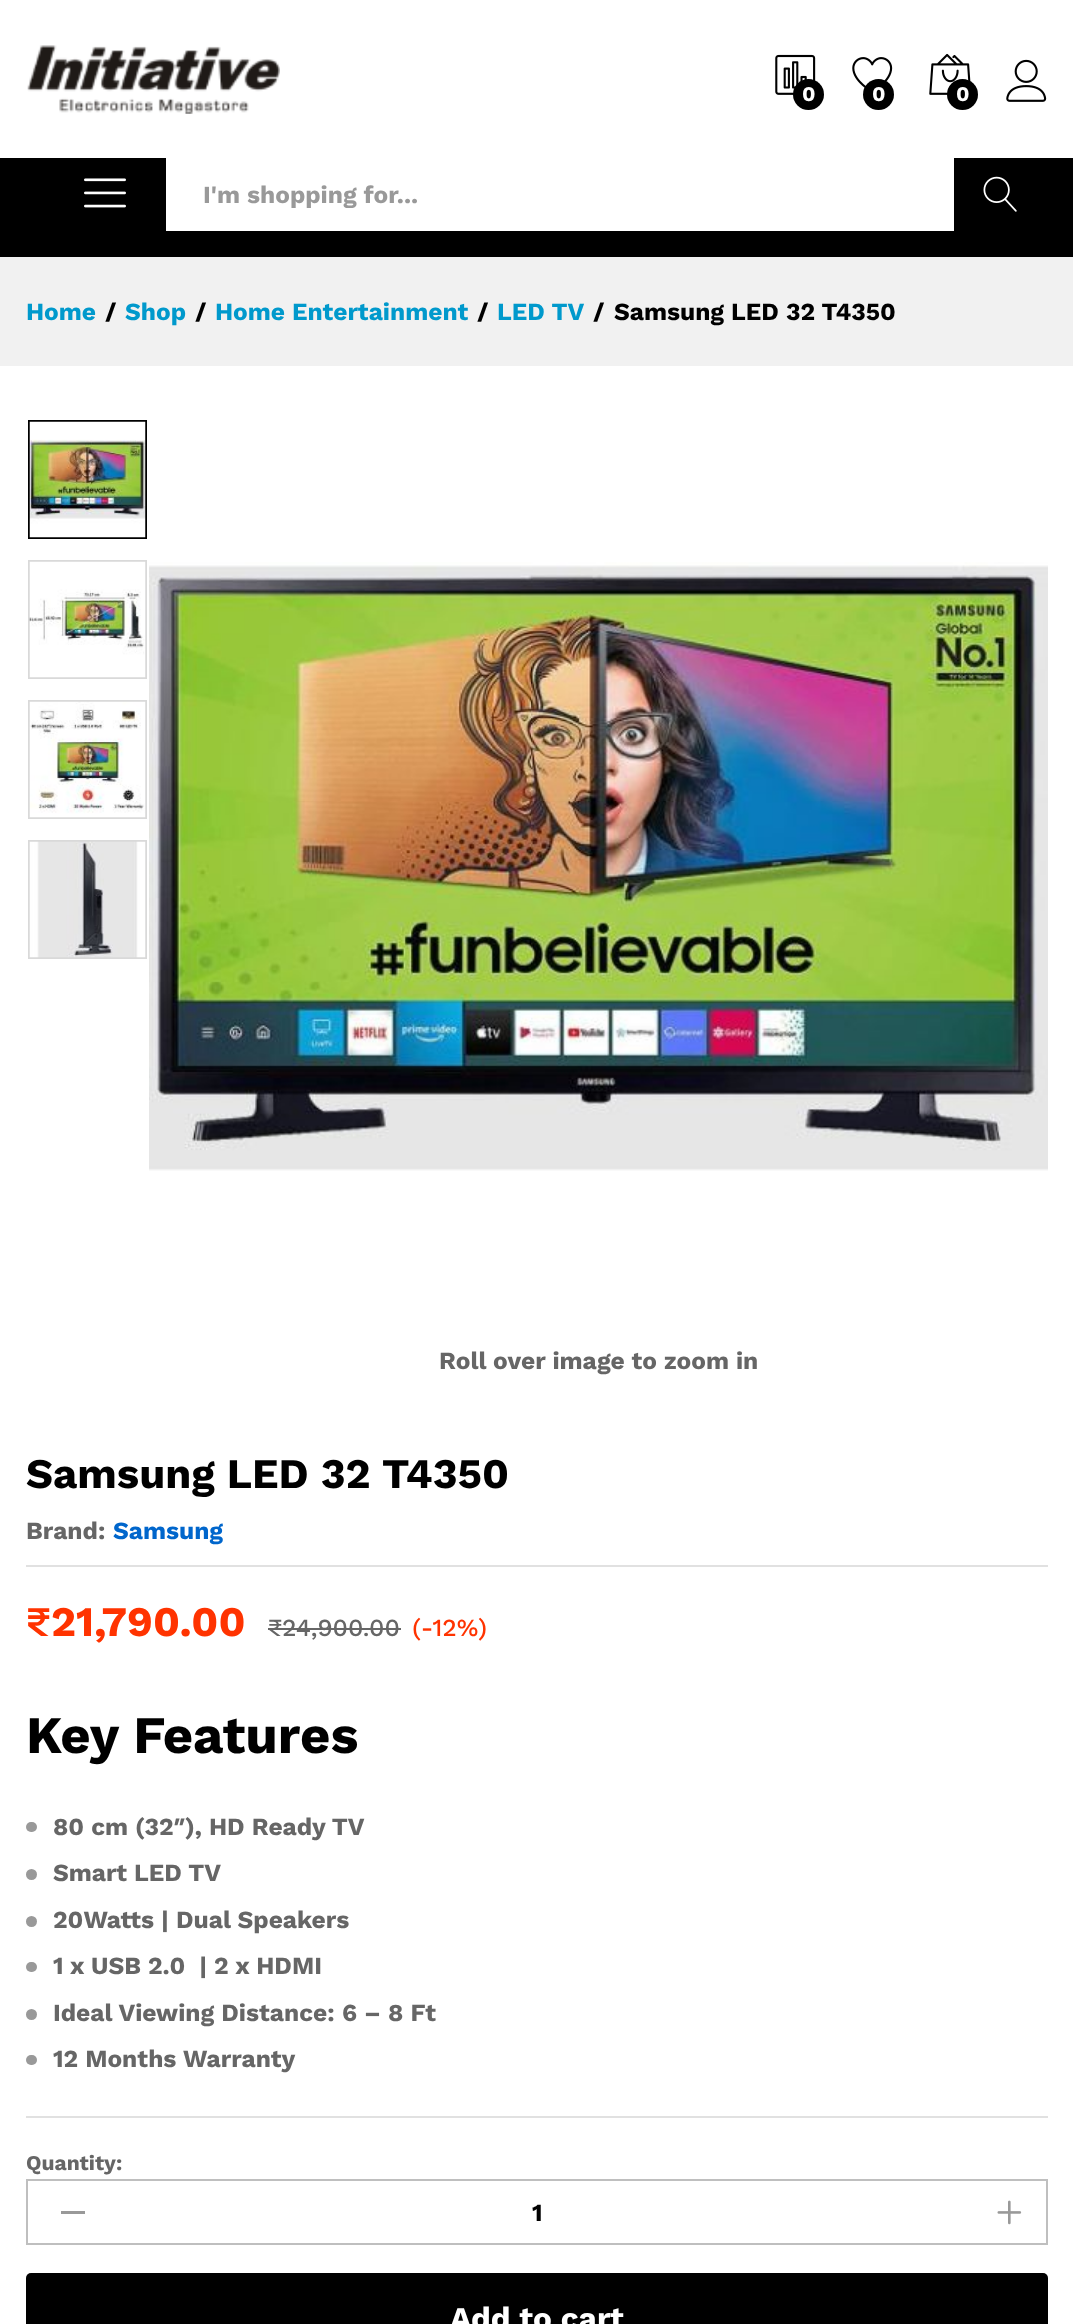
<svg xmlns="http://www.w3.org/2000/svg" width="1073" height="2324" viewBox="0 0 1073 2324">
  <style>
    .t1 { font: bold 21px Work Sans; fill: #fff; }
    .t2 { font: bold 24.5px Work Sans; fill: #999; }
    .t3 { font: bold 24.5px Work Sans; fill: #09c; }
    .t4 { font: bold 24.5px Work Sans; fill: #000; }
    .t5 { font: bold 24.5px Work Sans; fill: #666; }
    .t6 { font: bold 42px Work Sans; fill: #000; }
    .t7 { font: bold 24.5px Work Sans; fill: #06c; }
    .t8 { font: 600 42px Work Sans; fill: #f30; }
    .t9 { font: bold 42px Work Sans; fill: #f30; }
    .t10 { font: 500 24.5px Work Sans; fill: #666; }
    .t11 { font: 500 24.5px Work Sans; fill: #f30; }
    .t12 { font: bold 52.5px Work Sans; fill: #000; }
    .t13 { font: bold 21px Work Sans; fill: #666; }
    .t14 { font: bold 31.5px Work Sans; fill: #fff; }
  </style>
  <defs>
    <clipPath id="clip1"><rect x="203" y="180" width="716" height="28"/></clipPath>
  </defs>
  <rect width="100%" height="100%" fill="#fff"/>
  <rect x="0" y="158" width="1073" height="99" fill="#000"/>
  <image x="27" y="45" width="253" height="69" href="images/1.png"/>
  <image x="775" y="54" width="41" height="41" href="images/2.png"/>
  <circle cx="808.5" cy="94.5" r="15.5" fill="#000"/>
  <text x="802" y="101" class="t1">0</text>
  <image x="852" y="57" width="41" height="31" href="images/3.png"/>
  <circle cx="878.5" cy="94.5" r="15.5" fill="#000"/>
  <text x="872" y="101" class="t1">0</text>
  <image x="929" y="53" width="42" height="42" href="images/4.png"/>
  <circle cx="962.5" cy="94.5" r="15.5" fill="#000"/>
  <text x="956" y="101" class="t1">0</text>
  <image x="1006" y="59" width="41" height="43" href="images/5.png"/>
  <image x="84" y="178" width="42" height="30" href="images/6.png"/>
  <rect x="166" y="158" width="788" height="73" fill="#fff"/>
  <g clip-path="url(#clip1)">
    <text x="203" y="203" class="t2">I'm shopping for...</text>
  </g>
  <image x="983" y="176" width="34" height="36" href="images/7.png"/>
  <rect x="0" y="257" width="1073" height="109" fill="#f1f1f1"/>
  <text x="26" y="320" class="t3">Home</text>
  <text x="105" y="320" class="t4">/</text>
  <text x="125" y="320" class="t3">Shop</text>
  <text x="195" y="320" class="t4">/</text>
  <text x="215" y="320" class="t3">Home Entertainment</text>
  <text x="477" y="320" class="t4">/</text>
  <text x="497" y="320" class="t3">LED TV</text>
  <text x="593" y="320" class="t4">/</text>
  <text x="614" y="320" class="t4">Samsung LED 32 T4350</text>
  <rect x="29" y="421" width="117" height="117" fill="none" stroke="#000" stroke-width="2"/>
  <image x="29" y="421" width="117" height="117" href="images/8.png"/>
  <rect x="29" y="561" width="117" height="117" fill="none" stroke="#d9d9d9" stroke-width="2"/>
  <image x="29" y="561" width="117" height="117" href="images/9.png"/>
  <rect x="29" y="701" width="117" height="117" fill="none" stroke="#d9d9d9" stroke-width="2"/>
  <image x="29" y="701" width="117" height="117" href="images/10.png"/>
  <rect x="29" y="841" width="117" height="117" fill="none" stroke="#d9d9d9" stroke-width="2"/>
  <image x="29" y="841" width="117" height="117" href="images/11.png"/>
  <image x="149" y="562" width="899" height="609" href="images/12.png"/>
  <text x="439" y="1369" class="t5">Roll over image to zoom in</text>
  <rect x="26" y="1565" width="1022" height="2" fill="#e1e1e1"/>
  <text x="26" y="1488" class="t6">Samsung LED 32 T4350</text>
  <text x="26" y="1539" class="t5">Brand:</text>
  <text x="113" y="1539" class="t7">Samsung</text>
  <text x="26" y="1636" class="t8">₹</text>
  <text x="51" y="1636" class="t9">21,790.00</text>
  <text x="268" y="1636" class="t10">₹24,900.00</text>
  <rect x="268" y="1628" width="133" height="2" fill="#666"/>
  <text x="412" y="1636" class="t11">(-12%)</text>
  <rect x="26" y="2116" width="1022" height="2" fill="#e1e1e1"/>
  <text x="26" y="1753" class="t12">Key Features</text>
  <rect x="26" y="1822" width="11" height="10" rx="5" fill="#999"/>
  <text x="53" y="1835" class="t5">80 cm (32″), HD Ready TV</text>
  <circle cx="31.5" cy="1874.5" r="5.5" fill="#999"/>
  <text x="53" y="1881" class="t5">Smart LED TV</text>
  <circle cx="31.5" cy="1921.5" r="5.5" fill="#999"/>
  <text x="53" y="1928" class="t5">20Watts | Dual Speakers</text>
  <rect x="26" y="1962" width="11" height="10" rx="5" fill="#999"/>
  <text x="53" y="1974" class="t5" xml:space="preserve">1 x USB 2.0  | 2 x HDMI</text>
  <circle cx="31.5" cy="2014.5" r="5.5" fill="#999"/>
  <text x="53" y="2021" class="t5">Ideal Viewing Distance: 6 – 8 Ft</text>
  <rect x="26" y="2055" width="11" height="10" rx="5" fill="#999"/>
  <text x="53" y="2067" class="t5">12 Months Warranty</text>
  <text x="26" y="2170" class="t13">Quantity:</text>
  <rect x="27" y="2180" width="1020" height="64" fill="none" stroke="#bfbfbf" stroke-width="2"/>
  <rect x="61" y="2211" width="24" height="3" fill="#999"/>
  <text x="532" y="2221" class="t4">1</text>
  <image x="997" y="2200" width="25" height="25" href="images/13.png"/>
  <rect x="26" y="2273" width="1022" height="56" rx="5" fill="#000"/>
  <text x="450" y="2329" class="t14">Add to cart</text>
</svg>
